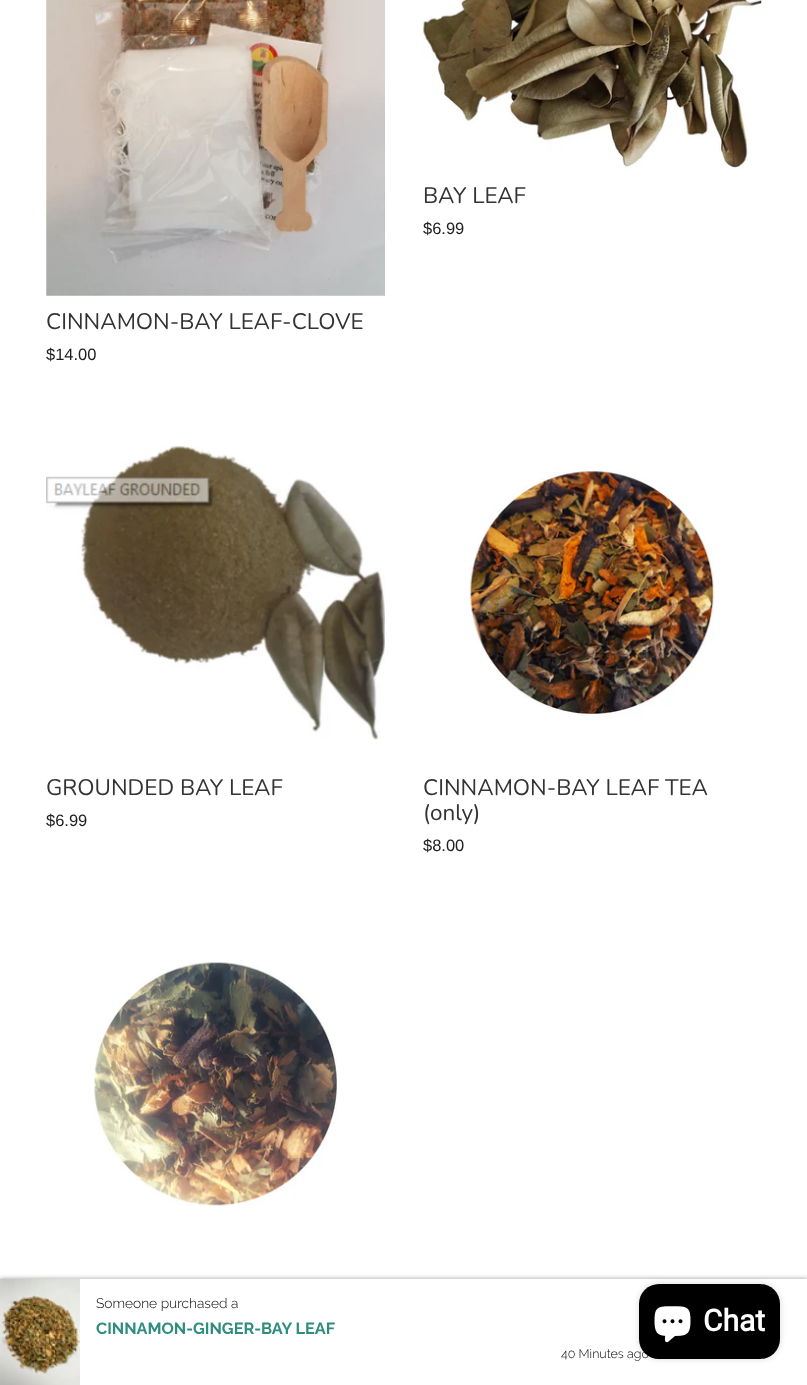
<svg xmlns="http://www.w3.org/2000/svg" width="807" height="1385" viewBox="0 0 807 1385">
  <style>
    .t1 { font: 200 22.5px Nunito; fill: #333; }
    .t2 { font: 16.5px Liberation Sans; fill: #1e1e1e; }
    .t3 { font: 300 13.75px Raleway; fill: #000; }
    .t4 { font: bold 16.25px Raleway; fill: #2f8d7d; }
    .t5 { font: 300 12.5px Raleway; fill: #000; }
    .t6 { font: bold 30px Roboto; fill: #fff; }
  </style>
  <rect width="100%" height="100%" fill="#fff"/>
  <image x="422" y="0" width="340" height="170" href="images/1.png"/>
  <text x="423" y="203" class="t1">BAY LEAF</text>
  <text x="423" y="234" class="t2">$6.99</text>
  <image x="46" y="0" width="339" height="296" href="images/2.png"/>
  <text x="46" y="329" class="t1">CINNAMON-BAY LEAF-CLOVE</text>
  <text x="46" y="360" class="t2">$14.00</text>
  <image x="46" y="445" width="339" height="295" href="images/3.png"/>
  <text x="46" y="795" class="t1">GROUNDED BAY LEAF</text>
  <text x="46" y="826" class="t2">$6.99</text>
  <image x="469" y="470" width="245" height="247" href="images/4.png"/>
  <text x="423" y="795" class="t1">CINNAMON-BAY LEAF TEA</text>
  <text x="423" y="820" class="t1">(only)</text>
  <text x="423" y="851" class="t2">$8.00</text>
  <image x="93" y="962" width="244" height="244" href="images/5.png"/>
  <rect x="0" y="1279" width="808" height="106" fill="#00000066" filter="blur(2.5px)"/>
  <rect x="80" y="1279" width="727" height="106" fill="#fff"/>
  <image x="0" y="1278" width="80" height="107" href="images/6.png"/>
  <text x="96" y="1308" class="t3">Someone purchased a</text>
  <text x="96" y="1334" class="t4">CINNAMON-GINGER-BAY LEAF</text>
  <text x="561" y="1358" class="t5">40 Minutes ago</text>
  <rect x="639" y="1284" width="141" height="75" rx="20" fill="#00000026" filter="blur(3px)"/>
  <rect x="639" y="1284" width="141" height="75" rx="20" fill="#000"/>
  <image x="654" y="1306" width="37" height="37" href="images/7.png"/>
  <text x="703" y="1331" class="t6">Chat</text>
</svg>
